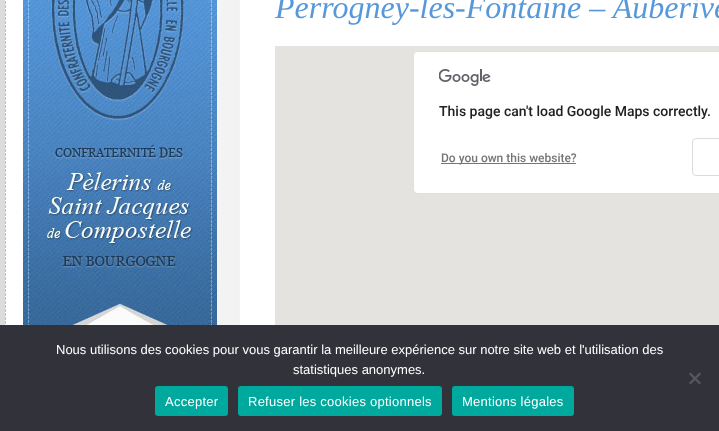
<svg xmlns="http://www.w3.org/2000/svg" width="719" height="431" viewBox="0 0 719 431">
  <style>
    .t1 { font: italic 32px Liberation Serif; fill: #5798da; }
    .t2 { font: 500 14px Roboto; fill: #212121; }
    .t3 { font: 500 12px Roboto; fill: #757575; }
    .t4 { font: 13px Liberation Sans; fill: #fff; }
    .t5 { font: 13px Liberation Sans; letter-spacing: 0.25px; fill: #fff; }
  </style>
  <rect width="100%" height="100%" fill="#fff"/>
  <image x="0" y="0" width="240" height="325" href="images/1.png"/>
  <image x="23" y="0" width="194" height="325" href="images/2.png"/>
  <text x="275" y="18" class="t1">Perrogney-les-Fontaine – Auberive</text>
  <rect x="275" y="46" width="444" height="279" fill="#e5e3df"/>
  <rect x="413" y="51" width="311" height="143" rx="5" fill="#fff"/>
  <rect x="413.5" y="51.5" width="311" height="142" rx="4.5" fill="none" stroke="#0000001f"/>
  <image x="439" y="69" width="52" height="17" href="images/3.png"/>
  <text x="439" y="116" class="t2">This page can't load Google Maps correctly.</text>
  <rect x="441" y="163" width="135" height="1" fill="#757575"/>
  <text x="441" y="162" class="t3">Do you own this website?</text>
  <rect x="692.5" y="138.5" width="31" height="37" rx="3.5" fill="none" stroke="#dadce0"/>
  <rect x="0" y="325" width="719" height="106" fill="#32323a"/>
  <text x="56" y="354" class="t4">Nous utilisons des cookies pour vous garantir la meilleure expérience sur notre site web et l'utilisation des</text>
  <text x="293" y="374" class="t4">statistiques anonymes.</text>
  <path d="M699.5 372.5L701 374L690.5 384.5L689 383Z" fill="#59595d"/>
  <path d="M689 374L690.5 372.5L701 383L699.5 384.5Z" fill="#59595d"/>
  <rect x="155" y="386" width="73" height="30" rx="3" fill="#00a99d"/>
  <text x="165" y="406" class="t5">Accepter</text>
  <rect x="238" y="386" width="204" height="30" rx="3" fill="#00a99d"/>
  <text x="248" y="406" class="t5">Refuser les cookies optionnels</text>
  <rect x="452" y="386" width="122" height="30" rx="3" fill="#00a99d"/>
  <text x="462" y="406" class="t5">Mentions légales</text>
</svg>
